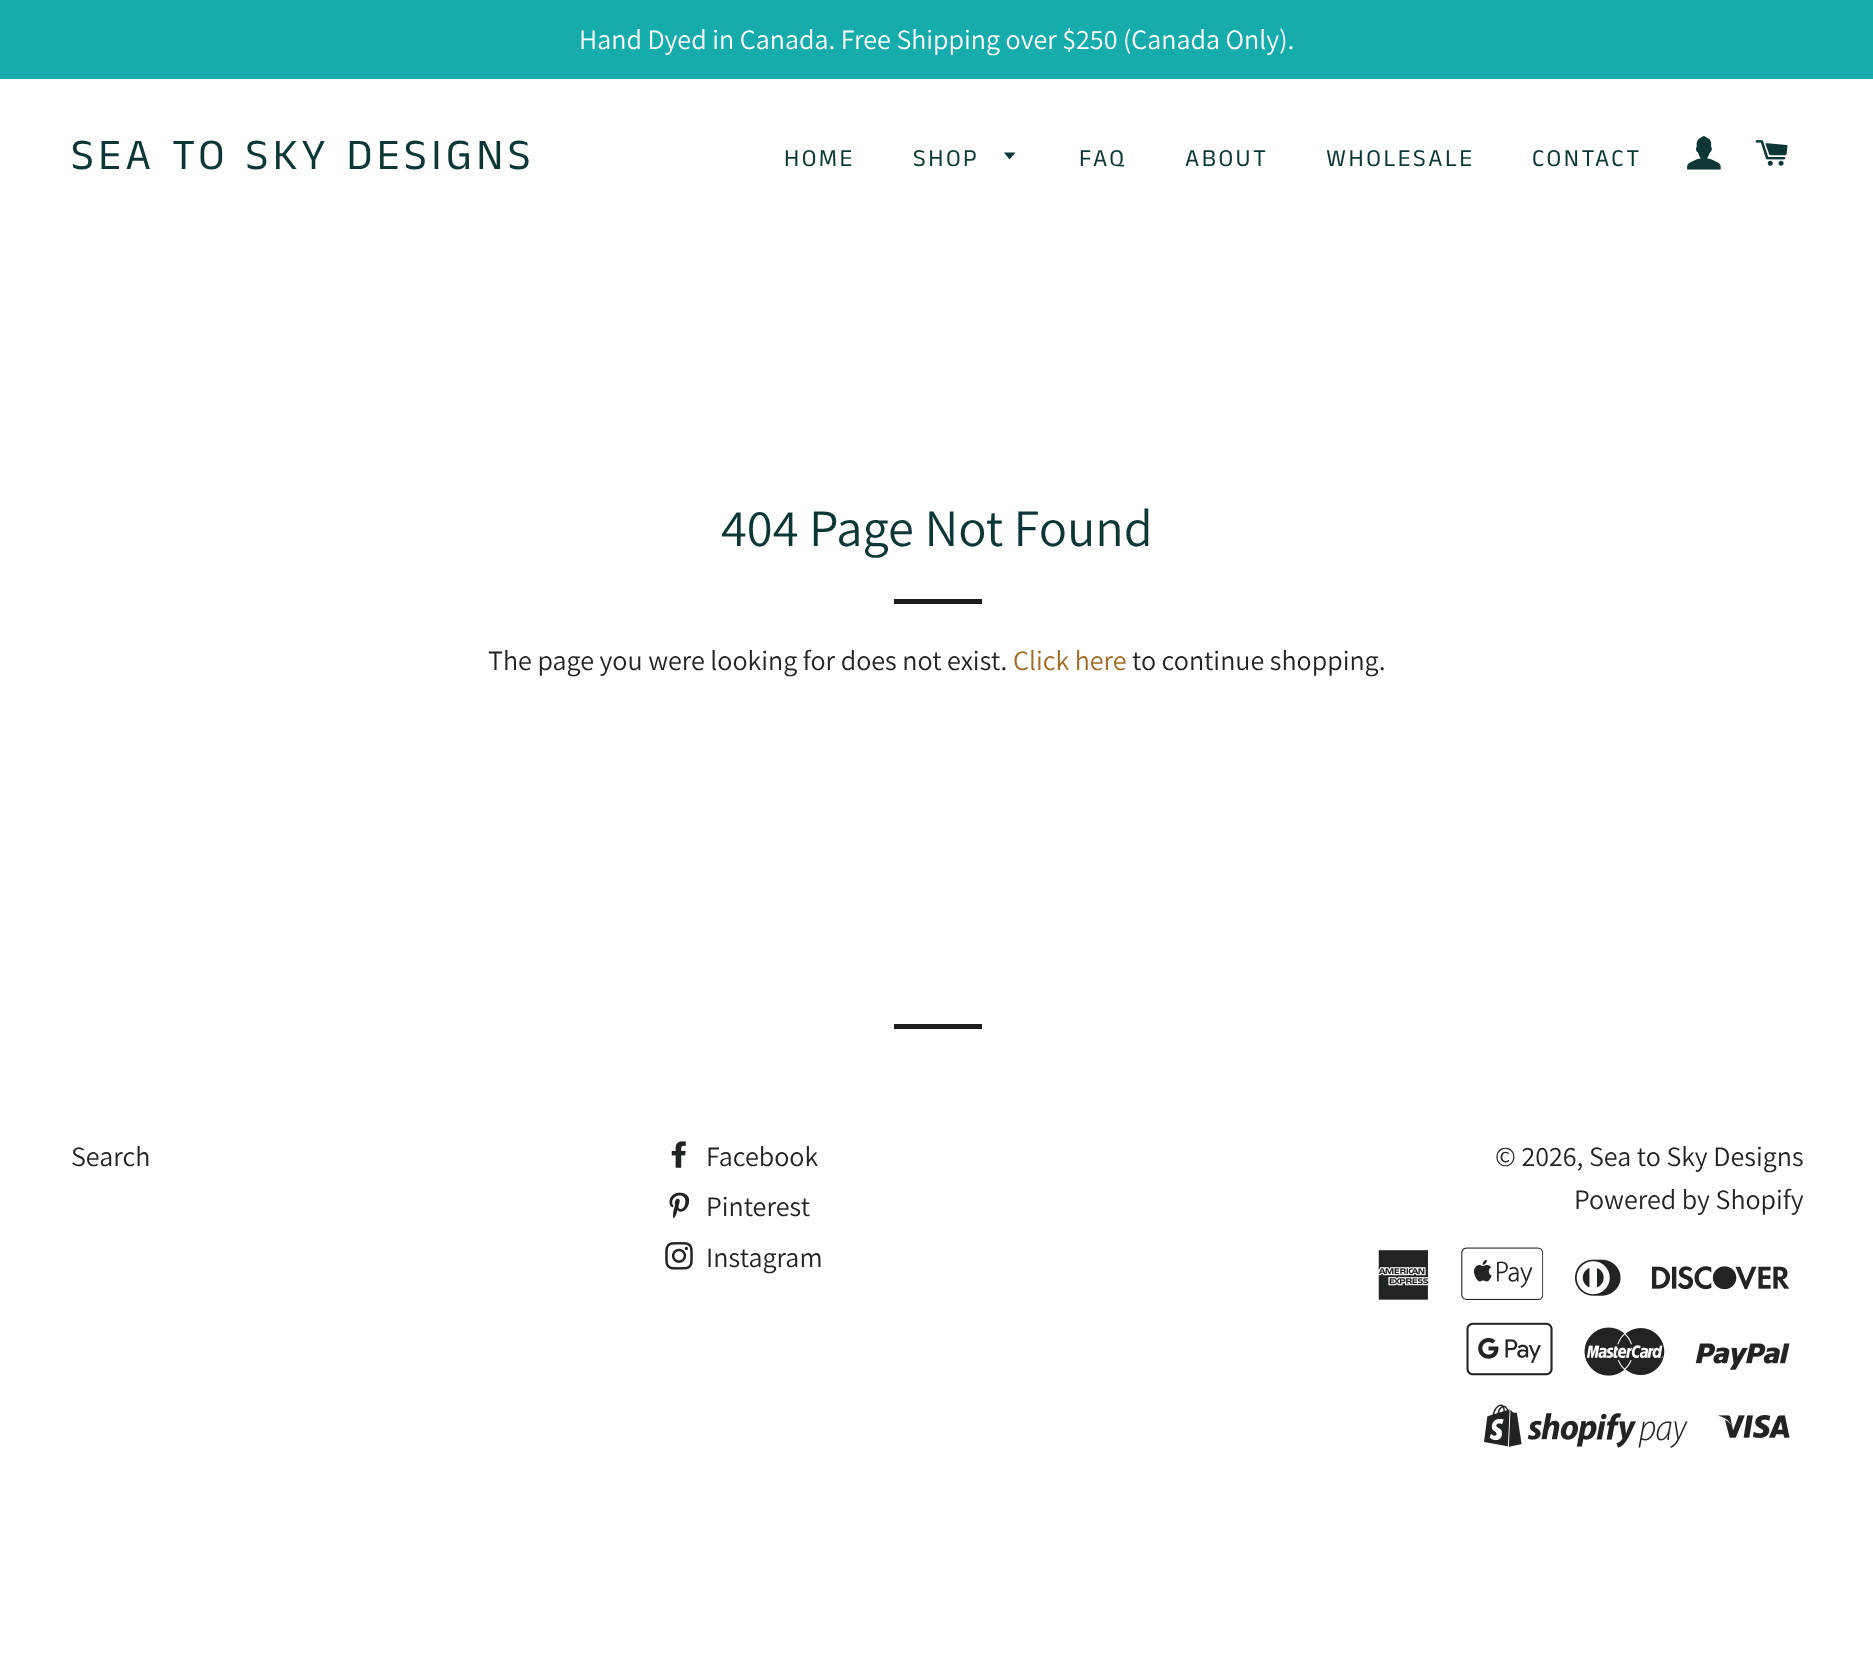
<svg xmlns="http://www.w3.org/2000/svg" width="1873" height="1665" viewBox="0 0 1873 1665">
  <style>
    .t1 { font: 28px Assistant; fill: #fff; }
    .t2 { font: 43.75px Anek Tamil; letter-spacing: 4.4px; fill: #0d3737; }
    .t3 { font: 24.5px Anek Tamil; letter-spacing: 2.5px; fill: #0d3737; }
    .t4 { font: 52.5px Assistant; fill: #0d3737; }
    .t5 { font: 28px Assistant; fill: #222323; }
    .t6 { font: 28px Assistant; fill: #a26b25; }
  </style>
  <rect width="100%" height="100%" fill="#fff"/>
  <rect x="0" y="0" width="1873" height="79" fill="#17acac"/>
  <text x="579" y="49" class="t1">Hand Dyed in Canada. Free Shipping over $250 (Canada Only).</text>
  <text x="71" y="169" class="t2">SEA TO SKY DESIGNS</text>
  <text x="784" y="166" class="t3">HOME</text>
  <text x="913" y="166" class="t3">SHOP</text>
  <path d="M1004 152.5L1009.5 159.5L1015.5 152.5Z" fill="#0d3737"/>
  <text x="1079" y="166" class="t3">FAQ</text>
  <text x="1185" y="166" class="t3">ABOUT</text>
  <text x="1326" y="166" class="t3">WHOLESALE</text>
  <text x="1532" y="166" class="t3">CONTACT</text>
  <image x="1687" y="136" width="34" height="34" href="images/1.png"/>
  <image x="1755" y="140" width="33" height="26" href="images/2.png"/>
  <text x="721" y="546" class="t4">404 Page Not Found</text>
  <rect x="894" y="599" width="88" height="5" fill="#1c1d1d"/>
  <text x="488" y="670" class="t5">The page you were looking for does not exist.</text>
  <text x="1013" y="670" class="t6">Click here</text>
  <text x="1132" y="670" class="t5">to continue shopping.</text>
  <rect x="894" y="1024" width="88" height="5" fill="#1c1d1d"/>
  <text x="71" y="1166" class="t5">Search</text>
  <image x="671" y="1141" width="15" height="27" href="images/3.png"/>
  <text x="706" y="1166" class="t5">Facebook</text>
  <image x="669" y="1192" width="21" height="27" href="images/4.png"/>
  <text x="706" y="1216" class="t5">Pinterest</text>
  <image x="665" y="1242" width="28" height="28" href="images/5.png"/>
  <text x="706" y="1267" class="t5">Instagram</text>
  <text x="1495" y="1166" class="t5">© 2026, Sea to Sky Designs</text>
  <text x="1574" y="1209" class="t5">Powered by Shopify</text>
  <image x="1378" y="1250" width="51" height="50" href="images/6.png"/>
  <image x="1461" y="1247" width="83" height="53" href="images/7.png"/>
  <image x="1575" y="1259" width="46" height="37" href="images/8.png"/>
  <image x="1652" y="1266" width="138" height="24" href="images/9.png"/>
  <image x="1466" y="1322" width="87" height="54" href="images/10.png"/>
  <image x="1584" y="1327" width="81" height="49" href="images/11.png"/>
  <image x="1695" y="1343" width="95" height="27" href="images/12.png"/>
  <image x="1484" y="1404" width="204" height="44" href="images/13.png"/>
  <image x="1718" y="1415" width="72" height="23" href="images/14.png"/>
</svg>
